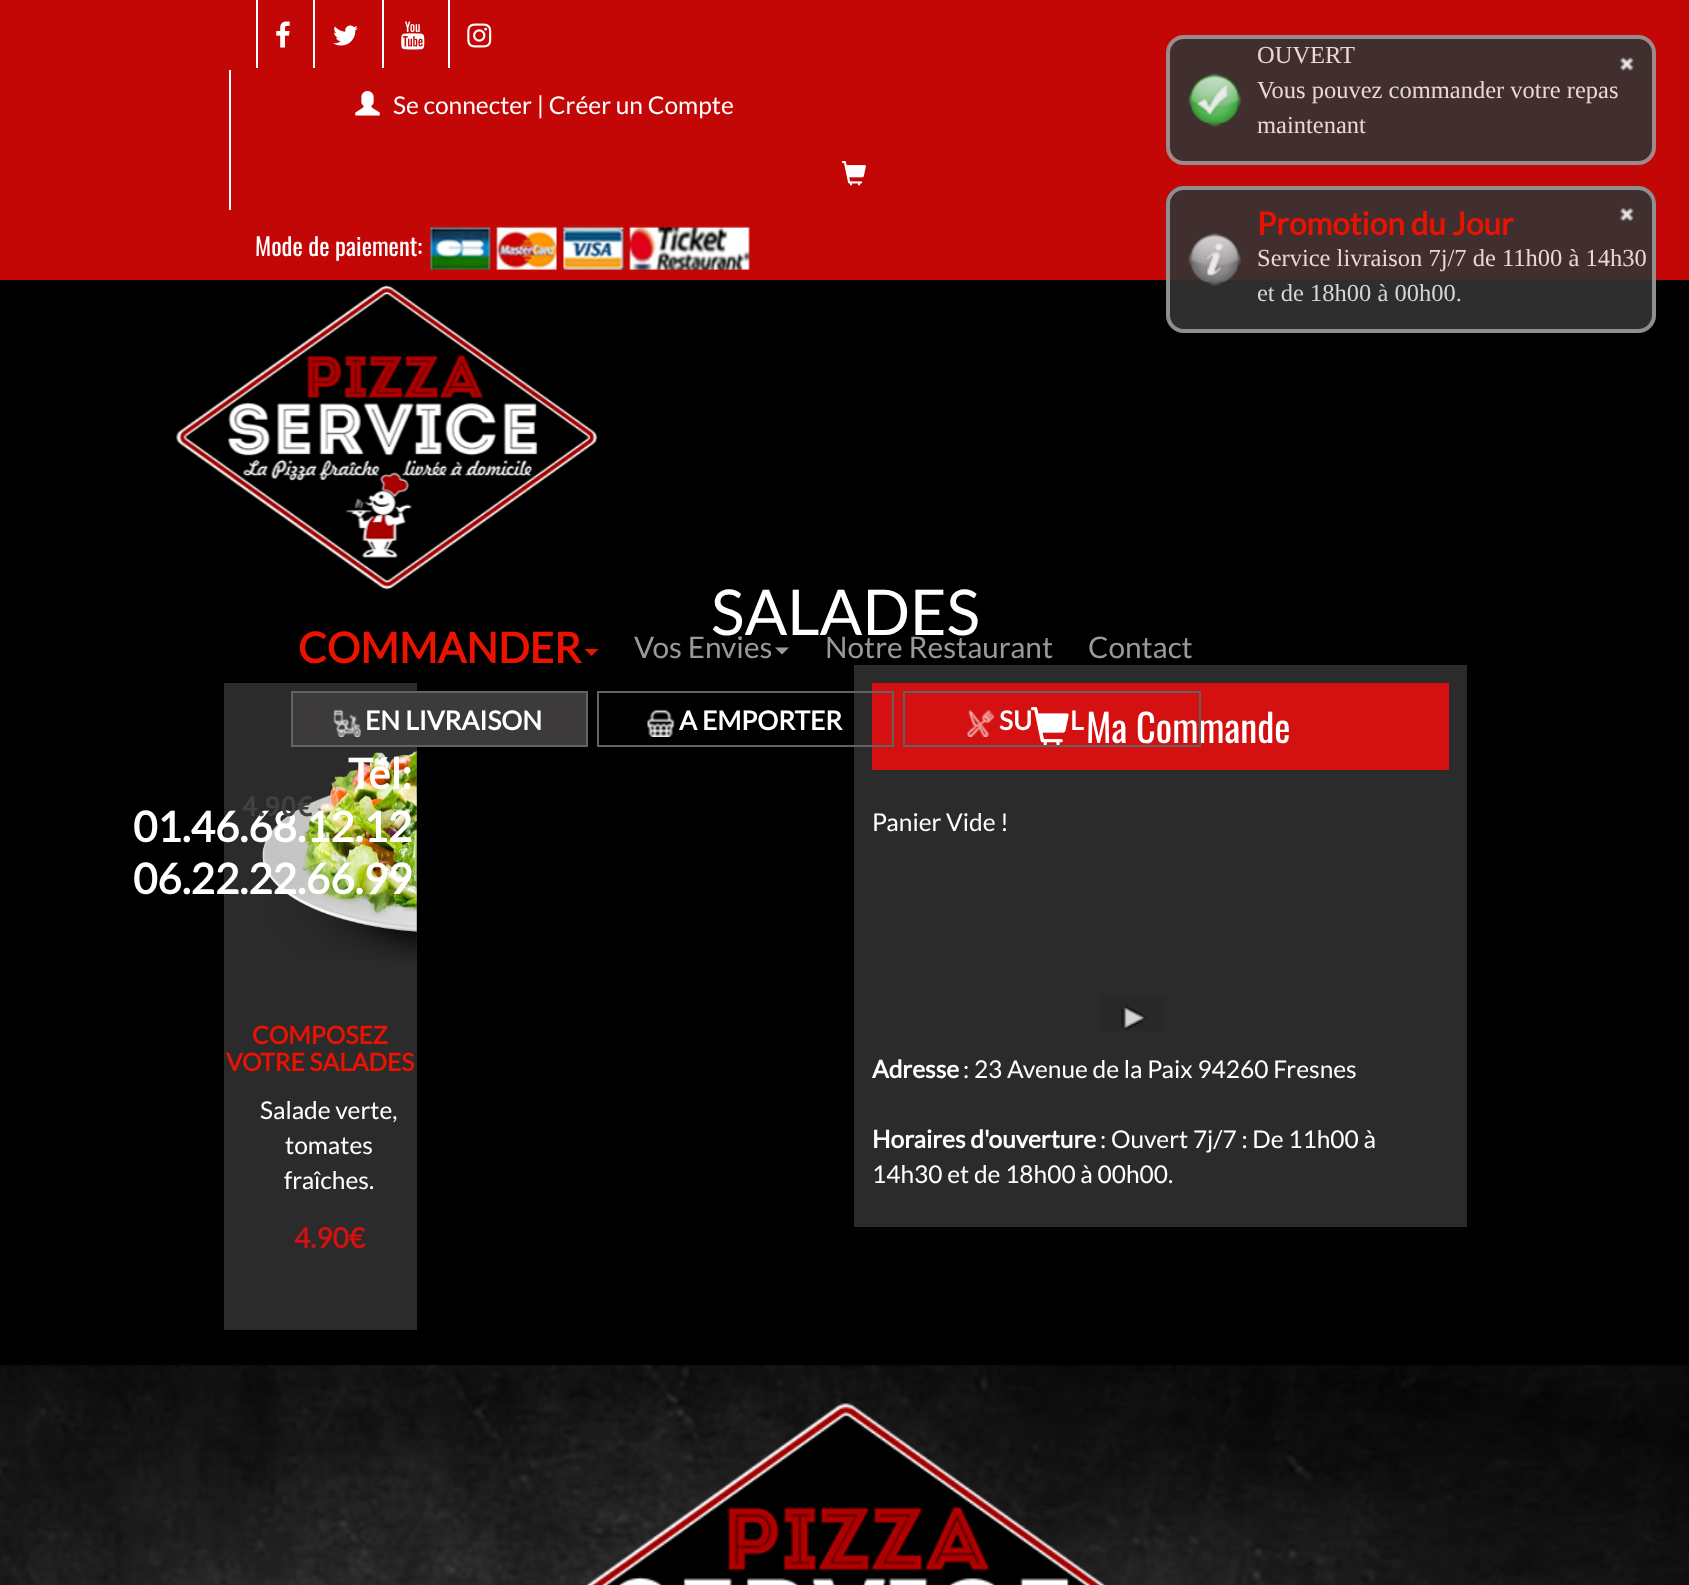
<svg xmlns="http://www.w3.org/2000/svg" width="1689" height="1585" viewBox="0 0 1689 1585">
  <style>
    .t1 { font: 24.5px Lato; fill: #fff; }
    .t2 { font: 24.5px Oswald; fill: #fff; }
    .t3 { font: bold 42px Lato; fill: #ea1301; }
    .t4 { font: 29.75px Lato; fill: #999; }
    .t5 { font: bold 26.25px Lato; fill: #fff; }
    .t6 { font: 38.5px Oswald; fill: #fff; }
    .t7 { font: bold 42px Lato; fill: #fff; }
    .t8 { font: 63px Lato; fill: #fff; }
    .t9 { font: bold 28px PT Sans; fill: #414140; }
    .t10 { font: bold 24.5px Lato; fill: #ea1301; }
    .t11 { font: bold 28px Lato; fill: #d51010; }
    .t12 { font: bold 24.5px Lato; fill: #fff; }
    .t13 { font: 24.5px Liberation Serif; fill: #ead7d7; }
    .t14 { font: bold 31.5px Lato; fill: #ea1301; }
    .t15 { font: 24.5px Liberation Serif; fill: #d6d6d6; }
  </style>
  <rect width="100%" height="100%" fill="#000"/>
  <rect x="0" y="0" width="1689" height="280" fill="#c30707"/>
  <rect x="256" y="0" width="2" height="68" fill="#fff"/>
  <image x="276" y="21" width="14" height="27" href="images/1.png"/>
  <rect x="313" y="0" width="2" height="68" fill="#fff"/>
  <image x="333" y="25" width="25" height="21" href="images/2.png"/>
  <rect x="382" y="0" width="2" height="68" fill="#fff"/>
  <image x="401" y="21" width="24" height="29" href="images/3.png"/>
  <rect x="448" y="0" width="2" height="68" fill="#fff"/>
  <image x="467" y="23" width="25" height="25" href="images/4.png"/>
  <rect x="229" y="70" width="2" height="140" fill="#fff"/>
  <image x="355" y="91" width="25" height="25" href="images/5.png"/>
  <text x="393" y="114" class="t1">Se connecter | Créer un Compte</text>
  <image x="841" y="161" width="25" height="25" href="images/6.png"/>
  <text x="255" y="256" class="t2">Mode de paiement:</text>
  <image x="430" y="226" width="61" height="44" href="images/7.png"/>
  <image x="496" y="226" width="61" height="44" href="images/8.png"/>
  <image x="563" y="226" width="61" height="44" href="images/9.png"/>
  <image x="629" y="226" width="121" height="44" href="images/10.png"/>
  <image x="176" y="285" width="421" height="305" href="images/11.png"/>
  <text x="298" y="663" class="t3">COMMANDER</text>
  <path d="M584.5 649H598.5L591.5 656Z" fill="#ea1301"/>
  <text x="634" y="658" class="t4">Vos Envies</text>
  <path d="M775 647.5H789L782 654.5Z" fill="#999"/>
  <text x="825" y="658" class="t4">Notre Restaurant</text>
  <text x="1088" y="658" class="t4">Contact</text>
  <rect x="224" y="683" width="193" height="647" fill="#2b2b2b"/>
  <rect x="292" y="692" width="295" height="54" fill="#3c3a3a" stroke="#636161" stroke-width="2"/>
  <image x="333" y="709" width="28" height="28" href="images/12.png"/>
  <text x="365" y="730" class="t5">EN LIVRAISON</text>
  <rect x="854" y="665" width="613" height="562" fill="#2b2b2b"/>
  <rect x="872" y="683" width="577" height="87" fill="#d51010"/>
  <rect x="598" y="692" width="295" height="54" fill="none" stroke="#636161" stroke-width="2"/>
  <image x="647" y="709" width="28" height="28" href="images/13.png"/>
  <text x="679" y="730" class="t5">A EMPORTER</text>
  <image x="1031" y="707" width="38" height="38" href="images/16.png"/>
  <text x="1086" y="743" class="t6">Ma Commande</text>
  <rect x="904" y="692" width="296" height="54" fill="none" stroke="#636161" stroke-width="2"/>
  <image x="967" y="709" width="27" height="28" href="images/14.png"/>
  <text x="999" y="730" class="t5">SU</text>
  <text x="1070" y="730" class="t5">L</text>
  <image x="262" y="750" width="155" height="211" href="images/15.png"/>
  <text x="348" y="789" class="t7">Tél:</text>
  <text x="133" y="842" class="t7">01.46.68.12.12</text>
  <text x="133" y="894" class="t7">06.22.22.66.99</text>
  <text x="711" y="635" class="t8">SALADES</text>
  <text x="242" y="816" class="t9">4.90€</text>
  <text x="252" y="1044" class="t10">COMPOSEZ</text>
  <text x="226" y="1071" class="t10">VOTRE SALADES</text>
  <text x="260" y="1119" class="t1">Salade verte,</text>
  <text x="285" y="1154" class="t1">tomates</text>
  <text x="284" y="1189" class="t1">fraîches.</text>
  <text x="294" y="1248" class="t11">4.90€</text>
  <text x="872" y="831" class="t1">Panier Vide !</text>
  <image x="1100" y="996" width="66" height="35" href="images/17.png"/>
  <text x="872" y="1078" class="t12">Adresse</text>
  <text x="963" y="1078" class="t1">: 23 Avenue de la Paix 94260 Fresnes</text>
  <text x="872" y="1148" class="t12">Horaires d'ouverture</text>
  <text x="1100" y="1148" class="t1">: Ouvert 7j/7 : De 11h00 à</text>
  <text x="872" y="1183" class="t1">14h30 et de 18h00 à 00h00.</text>
  <image x="0" y="1364" width="1689" height="221" href="images/18.png"/>
  <image x="586" y="1403" width="519" height="182" href="images/19.png"/>
  <rect x="1168" y="37" width="486" height="126" rx="16" fill="#412f2f" stroke="#9d8a8a" stroke-width="4"/>
  <text x="1257" y="63" class="t13">OUVERT</text>
  <text x="1257" y="98" class="t13">Vous pouvez commander votre repas</text>
  <text x="1257" y="133" class="t13">maintenant</text>
  <image x="1620" y="57" width="14" height="14" href="images/20.png"/>
  <image x="1188" y="73" width="54" height="54" href="images/21.png"/>
  <rect x="1166" y="186" width="490" height="147" rx="18" fill="#333333e6"/>
  <rect x="1168" y="188" width="486" height="143" rx="16" fill="none" stroke="#999999e6" stroke-width="4"/>
  <image x="1620" y="207" width="14" height="14" href="images/22.png"/>
  <image x="1188" y="232" width="53" height="54" href="images/23.png"/>
  <text x="1257" y="235" class="t14">Promotion du Jour</text>
  <text x="1257" y="266" class="t13">Service livraison 7j/7 de 11h00 à 14h30</text>
  <text x="1257" y="301" class="t15">et de 18h00 à 00h00.</text>
</svg>
